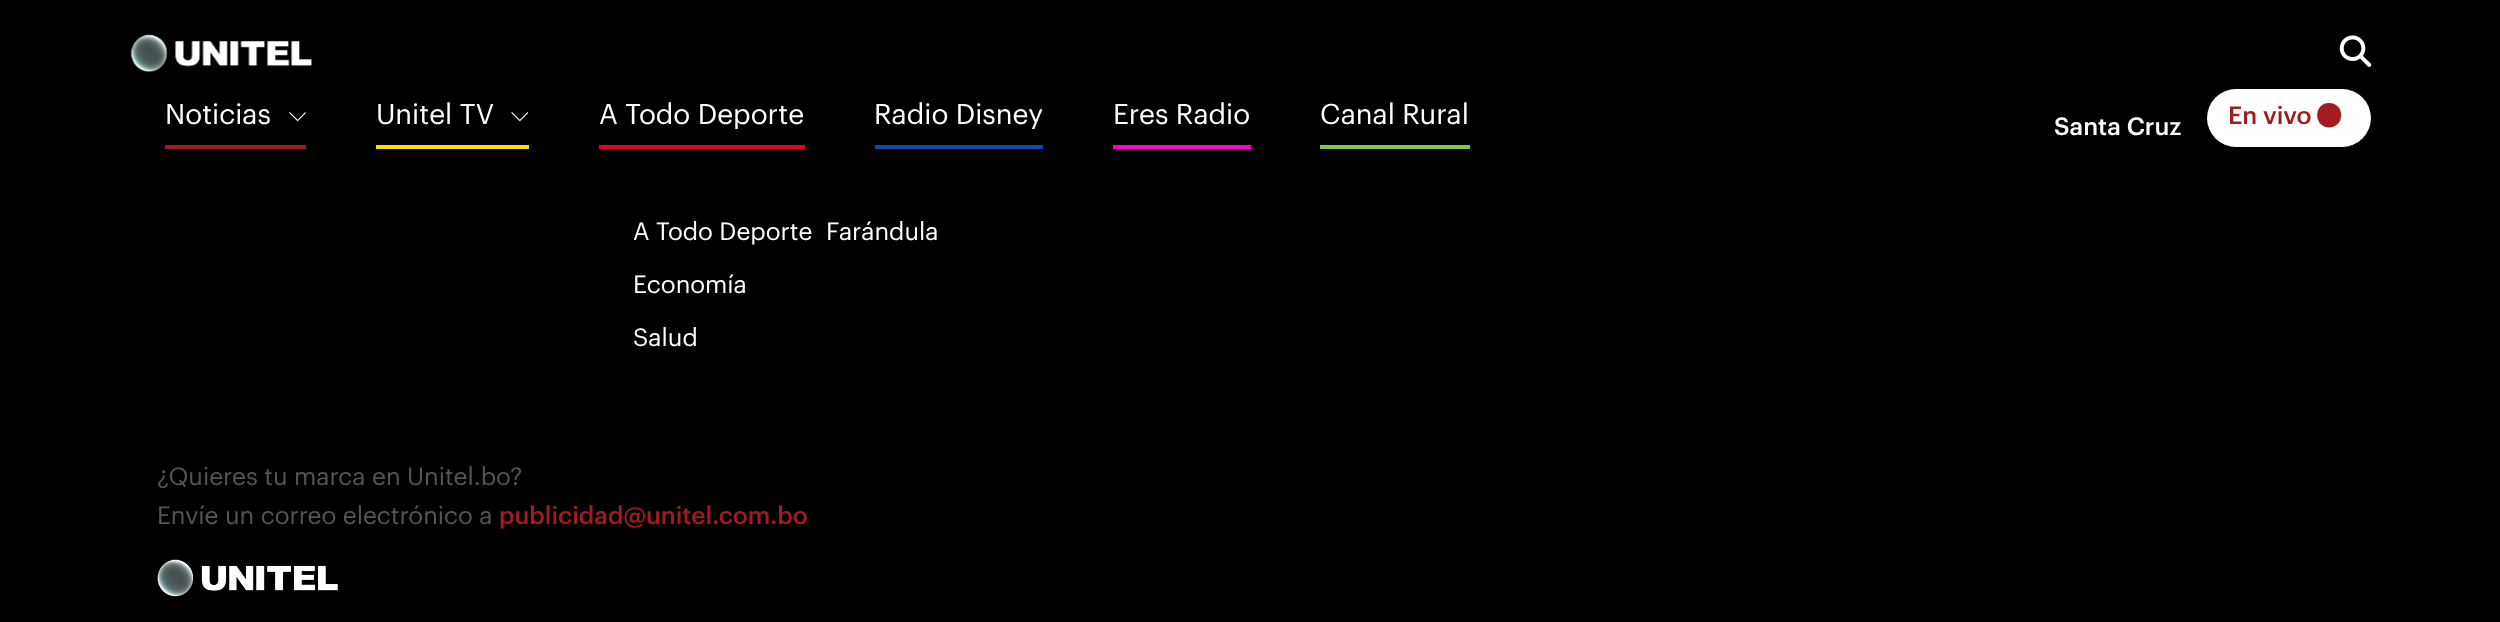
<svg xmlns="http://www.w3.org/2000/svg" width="2500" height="622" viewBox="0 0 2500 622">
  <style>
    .t1 { font: 28px Graphik; fill: #fff; }
    .t2 { font: 500 24.5px Graphik; fill: #fff; }
    .t3 { font: 500 24.5px Graphik; fill: #a21c1e; }
    .t4 { font: 24.5px Graphik; fill: #fff; }
    .t5 { font: 24.5px Graphik; fill: #555; }
  </style>
  <rect width="100%" height="100%" fill="#000"/>
  <image x="130" y="34" width="182" height="38" href="images/1.png"/>
  <image x="2339" y="35" width="33" height="32" href="images/2.png"/>
  <rect x="165" y="145" width="141" height="4" fill="#a21c1e"/>
  <text x="165" y="124" class="t1">Noticias</text>
  <image x="289" y="112" width="17" height="10" href="images/3.png"/>
  <rect x="376" y="145" width="153" height="4" fill="#fcdd09"/>
  <text x="376" y="124" class="t1">Unitel TV</text>
  <image x="511" y="112" width="18" height="10" href="images/4.png"/>
  <rect x="599" y="145" width="206" height="4" fill="#e30613"/>
  <text x="599" y="124" class="t1">A Todo Deporte</text>
  <rect x="875" y="145" width="168" height="4" fill="#0f47af"/>
  <text x="874" y="124" class="t1">Radio Disney</text>
  <rect x="1113" y="145" width="138" height="4" fill="#ff00d2"/>
  <text x="1113" y="124" class="t1">Eres Radio</text>
  <rect x="1320" y="145" width="150" height="4" fill="#8cc641"/>
  <text x="1320" y="124" class="t1">Canal Rural</text>
  <text x="2054" y="135" class="t2">Santa Cruz</text>
  <rect x="2207" y="89" width="164" height="58" rx="29" fill="#fff"/>
  <text x="2228" y="124" class="t3">En vivo</text>
  <path d="M2329 127.5C2345.5 127 2345 103 2329 103C2313.5 103 2313 127 2329 127.5Z" fill="#a21c1e"/>
  <text x="633" y="240" class="t4">A Todo Deporte</text>
  <text x="633" y="293" class="t4">Economía</text>
  <text x="633" y="346" class="t4">Salud</text>
  <text x="826" y="240" class="t4">Farándula</text>
  <text x="157" y="485" class="t5">¿Quieres tu marca en Unitel.bo?</text>
  <text x="157" y="524" class="t5">Envíe un correo electrónico a</text>
  <text x="499" y="524" class="t3">publicidad@unitel.com.bo</text>
  <image x="157" y="559" width="181" height="38" href="images/5.png"/>
</svg>
